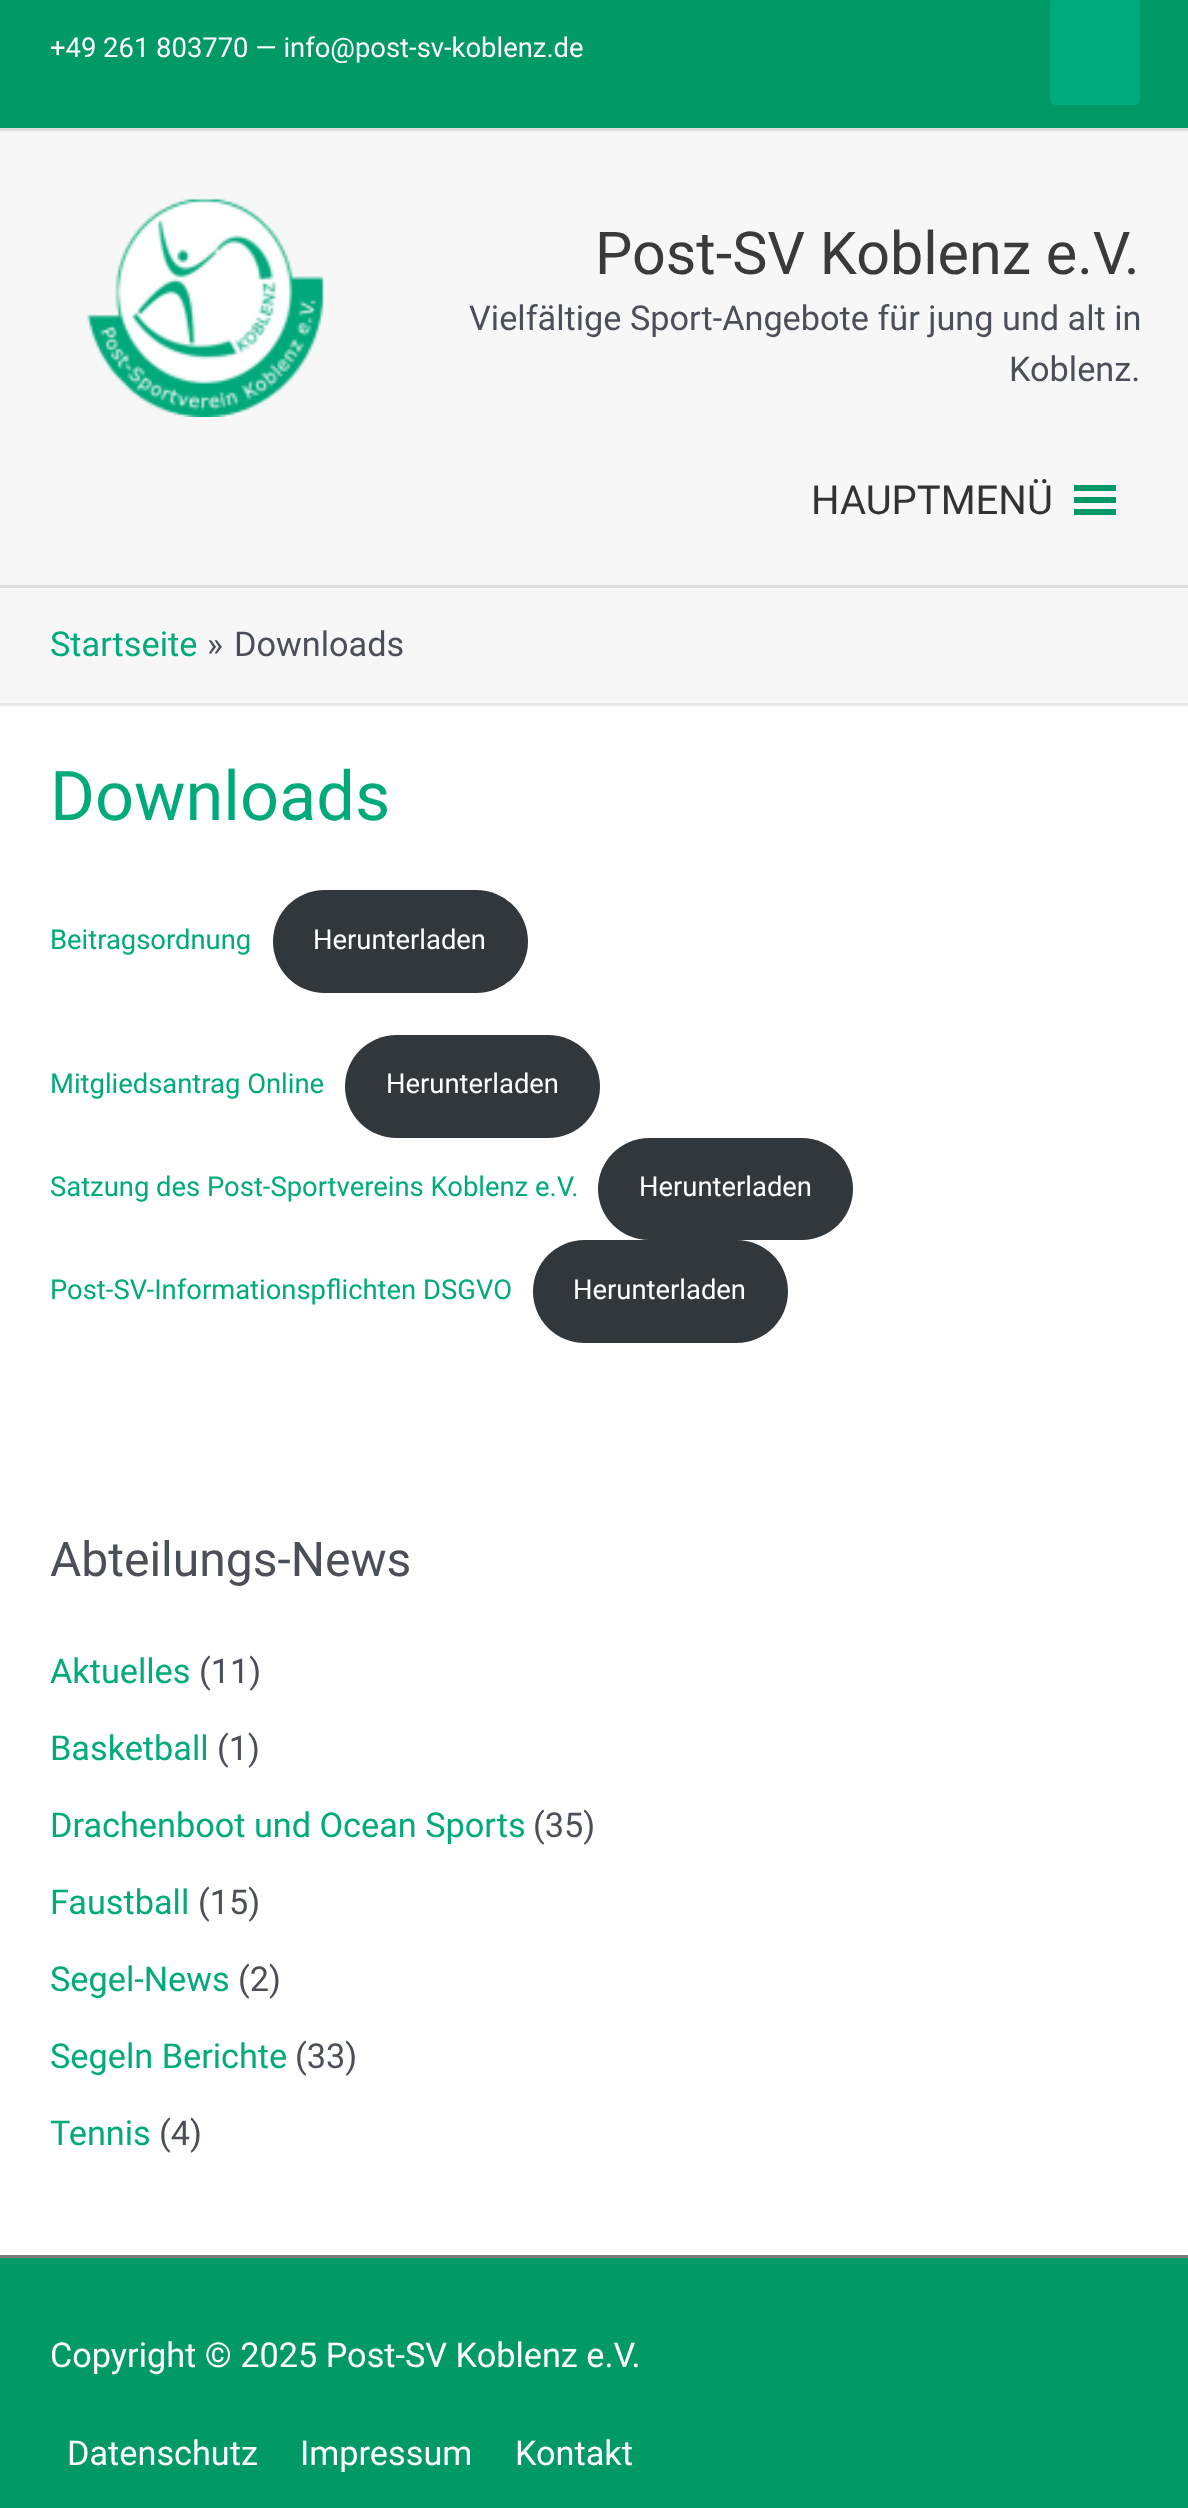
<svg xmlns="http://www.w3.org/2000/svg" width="1188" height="2508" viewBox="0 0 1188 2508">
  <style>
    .t1 { font: 27.4px Roboto; fill: #fff; }
    .t2 { font: 59.25px Roboto; fill: #3a3a3a; }
    .t3 { font: 34.25px Roboto; fill: #4b4f58; }
    .t4 { font: 40px Roboto; fill: #333; }
    .t5 { font: 34.25px Roboto; fill: #00aa7b; }
    .t6 { font: 68.5px Roboto; fill: #00aa7b; }
    .t7 { font: 27.4px Roboto; fill: #00aa7b; }
    .t8 { font: 48px Roboto; fill: #4b4f58; }
    .t9 { font: 34.25px Roboto; fill: #fff; }
  </style>
  <rect width="100%" height="100%" fill="#fff"/>
  <rect x="0" y="0" width="1188" height="128" fill="#019966"/>
  <rect x="0" y="128" width="1188" height="3" fill="#ddd"/>
  <text x="50" y="57" class="t1">+49 261 803770 — info@post-sv-koblenz.de</text>
  <rect x="1050" y="-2" width="90" height="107" rx="5" fill="#00aa7b"/>
  <rect x="0" y="131" width="1188" height="454" fill="#f7f7f7"/>
  <rect x="0" y="585" width="1188" height="3" fill="#ddd"/>
  <image x="86" y="198" width="238" height="219" href="images/1.png"/>
  <text x="595" y="274" class="t2">Post-SV Koblenz e.V.</text>
  <text x="469" y="330" class="t3">Vielfältige Sport-Angebote für jung und alt in</text>
  <text x="1009" y="381" class="t3">Koblenz.</text>
  <text x="811" y="514" class="t4">HAUPTMENÜ</text>
  <path d="M1074 515H1116V509H1074ZM1074 485V491H1116V485ZM1074 503H1116V497H1074Z" fill="#019966"/>
  <rect x="0" y="588" width="1188" height="115" fill="#f7f7f7"/>
  <rect x="0" y="703" width="1188" height="3" fill="#eaeaea"/>
  <text x="50" y="656" class="t5">Startseite</text>
  <text x="207" y="656" class="t3">»</text>
  <text x="234" y="656" class="t3">Downloads</text>
  <text x="50" y="820" class="t6">Downloads</text>
  <text x="50" y="949" class="t7">Beitragsordnung</text>
  <rect x="273" y="890" width="255" height="103" rx="51.5" fill="#32373c"/>
  <text x="313" y="949" class="t1">Herunterladen</text>
  <text x="50" y="1093" class="t7">Mitgliedsantrag Online</text>
  <rect x="345" y="1035" width="255" height="103" rx="51.5" fill="#32373c"/>
  <text x="386" y="1093" class="t1">Herunterladen</text>
  <text x="50" y="1196" class="t7">Satzung des Post-Sportvereins Koblenz e.V.</text>
  <rect x="598" y="1138" width="255" height="102" rx="51" fill="#32373c"/>
  <text x="639" y="1196" class="t1">Herunterladen</text>
  <text x="50" y="1299" class="t7">Post-SV-Informationspflichten DSGVO</text>
  <rect x="533" y="1240" width="255" height="103" rx="51.5" fill="#32373c"/>
  <text x="573" y="1299" class="t1">Herunterladen</text>
  <text x="50" y="1576" class="t8">Abteilungs-News</text>
  <text x="50" y="1683" class="t5">Aktuelles</text>
  <text x="199" y="1683" class="t3">(11)</text>
  <text x="50" y="1760" class="t5">Basketball</text>
  <text x="217" y="1760" class="t3">(1)</text>
  <text x="50" y="1837" class="t5">Drachenboot und Ocean Sports</text>
  <text x="533" y="1837" class="t3">(35)</text>
  <text x="50" y="1914" class="t5">Faustball</text>
  <text x="198" y="1914" class="t3">(15)</text>
  <text x="50" y="1991" class="t5">Segel-News</text>
  <text x="238" y="1991" class="t3">(2)</text>
  <text x="50" y="2068" class="t5">Segeln Berichte</text>
  <text x="295" y="2068" class="t3">(33)</text>
  <text x="50" y="2145" class="t5">Tennis</text>
  <text x="159" y="2145" class="t3">(4)</text>
  <rect x="0" y="2255" width="1188" height="3" fill="#7a7a7a"/>
  <rect x="0" y="2258" width="1188" height="250" fill="#019966"/>
  <text x="50" y="2367" class="t9">Copyright © 2025 Post-SV Koblenz e.V.</text>
  <text x="67" y="2465" class="t9">Datenschutz</text>
  <text x="300" y="2465" class="t9">Impressum</text>
  <text x="515" y="2465" class="t9">Kontakt</text>
</svg>
